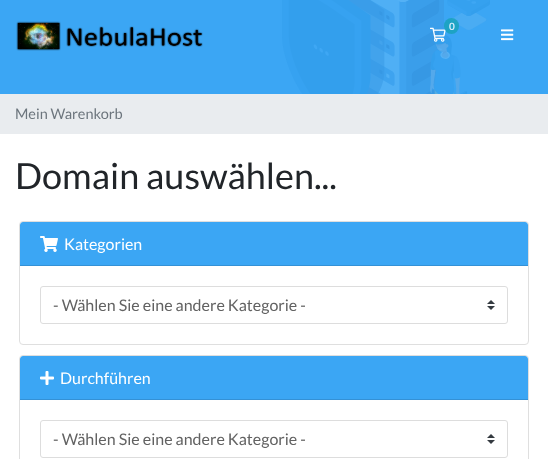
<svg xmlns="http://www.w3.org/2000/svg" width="548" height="459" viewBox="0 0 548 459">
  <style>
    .t1 { font: bold 10px Lato; fill: #d8edfd; }
    .t2 { font: 14.5px Lato; fill: #6c757d; }
    .t3 { font: 36px Lato; fill: #212529; }
    .t4 { font: 16px Lato; fill: #fff; }
    .t5 { font: 16px Lato; fill: #626262; }
  </style>
  <rect width="100%" height="100%" fill="#fff"/>
  <rect x="0" y="0" width="548" height="94" fill="#3ba6f4"/>
  <image x="282" y="0" width="208" height="94" href="images/1.png"/>
  <image x="16" y="21" width="187" height="30" href="images/2.png"/>
  <image x="430" y="27" width="16" height="15" href="images/3.png"/>
  <rect x="444" y="18" width="15" height="16" rx="7.5" fill="#17a2b8cc"/>
  <text x="449" y="30" class="t1">0</text>
  <image x="501" y="29" width="13" height="12" href="images/4.png"/>
  <rect x="0" y="94" width="548" height="40" fill="#e9ecef"/>
  <text x="15" y="119" class="t2">Mein Warenkorb</text>
  <text x="15" y="189" class="t3">Domain auswählen...</text>
  <rect x="19.5" y="221.5" width="509" height="123" rx="3.5" fill="none" stroke="#dfdfdf"/>
  <path d="M23 222H525C526.5 222 528 223.5 528 225V266H20V225C20 223.5 21.5 222 23 222Z" fill="#3ba6f4"/>
  <rect x="20" y="265" width="508" height="1" fill="#3491d6"/>
  <image x="40" y="236" width="18" height="16" href="images/5.png"/>
  <text x="64" y="250" class="t4">Kategorien</text>
  <image x="487" y="300" width="8" height="10" href="images/6.png"/>
  <rect x="40.5" y="286.5" width="467" height="37" rx="2.5" fill="none" stroke="#ddd"/>
  <text x="53" y="311" class="t5">- Wählen Sie eine andere Kategorie -</text>
  <rect x="19.5" y="355.5" width="509" height="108" rx="3.5" fill="none" stroke="#dfdfdf"/>
  <path d="M23 356H525C526.5 356 528 357.5 528 359V400H20V359C20 357.5 21.5 356 23 356Z" fill="#3ba6f4"/>
  <rect x="20" y="399" width="508" height="1" fill="#3491d6"/>
  <image x="40" y="371" width="14" height="14" href="images/7.png"/>
  <text x="60" y="384" class="t4">Durchführen</text>
  <image x="487" y="434" width="8" height="10" href="images/6.png"/>
  <rect x="40.5" y="420.5" width="467" height="37" rx="2.5" fill="none" stroke="#ddd"/>
  <text x="53" y="445" class="t5">- Wählen Sie eine andere Kategorie -</text>
</svg>
